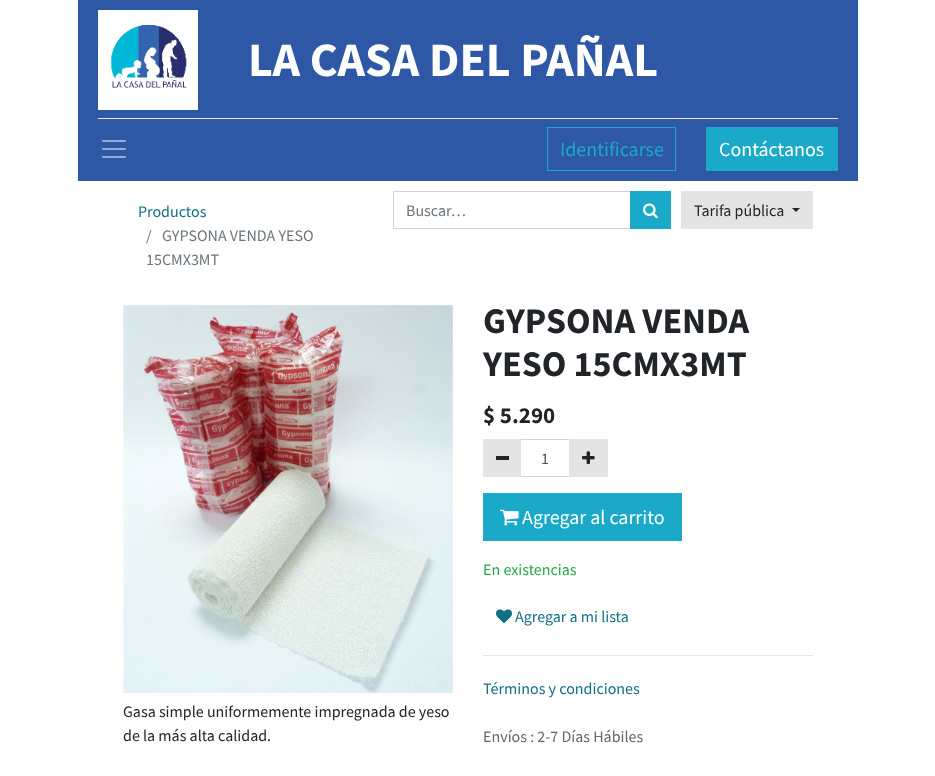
<svg xmlns="http://www.w3.org/2000/svg" width="935" height="776" viewBox="0 0 935 776">
  <style>
    .t1 { font: bold 48px Source Sans Pro; fill: #fff; }
    .t2 { font: 20px Source Sans Pro; fill: #1ba9c9; }
    .t3 { font: 20px Source Sans Pro; fill: #fff; }
    .t4 { font: 16px Source Sans Pro; fill: #127086; }
    .t5 { font: 16px Source Sans Pro; fill: #6c757d; }
    .t6 { font: 16px Source Sans Pro; fill: #212529; }
    .t7 { font: bold 36px Source Sans Pro; fill: #212529; }
    .t8 { font: bold 23px Source Sans Pro; fill: #212529; }
    .t9 { font: 16px Source Sans Pro; fill: #495057; }
    .t10 { font: 16px Source Sans Pro; fill: #28a745; }
    .t11 { font: 16px Source Sans Pro; fill: #646669; }
  </style>
  <rect width="100%" height="100%" fill="#fff"/>
  <rect x="78" y="0" width="780" height="181" fill="#2e58a6"/>
  <image x="98" y="10" width="100" height="100" href="images/1.png"/>
  <text x="248" y="76" class="t1">LA CASA DEL PAÑAL</text>
  <rect x="98" y="118" width="740" height="1" fill="#e9ecef"/>
  <image x="102" y="140" width="24" height="18" href="images/2.png"/>
  <rect x="547.5" y="127.5" width="128" height="43" fill="none" stroke="#1ba9c9"/>
  <text x="560" y="156" class="t2">Identificarse</text>
  <rect x="706" y="127" width="132" height="44" fill="#1ba9c9"/>
  <text x="719" y="156" class="t3">Contáctanos</text>
  <text x="138" y="217" class="t4">Productos</text>
  <text x="146" y="241" class="t5">/</text>
  <text x="162" y="241" class="t5">GYPSONA VENDA YESO</text>
  <text x="146" y="265" class="t5">15CMX3MT</text>
  <rect x="393.5" y="191.5" width="237" height="37" fill="none" stroke="#ced4da"/>
  <text x="406" y="216" class="t5">Buscar…</text>
  <rect x="630" y="191" width="41" height="38" fill="#1ba9c9"/>
  <image x="643" y="203" width="15" height="16" href="images/3.png"/>
  <rect x="681" y="191" width="132" height="38" fill="#e4e4e4"/>
  <text x="694" y="216" class="t6">Tarifa pública</text>
  <path d="M792 208H800L796 212Z" fill="#212529"/>
  <image x="123" y="305" width="330" height="388" href="images/4.png"/>
  <text x="123" y="717" class="t6">Gasa simple uniformemente impregnada de yeso</text>
  <text x="123" y="741" class="t6">de la más alta calidad.</text>
  <text x="483" y="333" class="t7">GYPSONA VENDA</text>
  <text x="483" y="376" class="t7">YESO 15CMX3MT</text>
  <text x="483" y="423" class="t8">$ 5.290</text>
  <rect x="520.5" y="439.5" width="49" height="37" fill="none" stroke="#ced4da"/>
  <rect x="483" y="439" width="38" height="38" fill="#e4e4e4"/>
  <rect x="496" y="456" width="13" height="4" fill="#212529"/>
  <text x="541" y="464" class="t9">1</text>
  <rect x="569" y="439" width="39" height="38" fill="#e4e4e4"/>
  <image x="582" y="451" width="13" height="13" href="images/5.png"/>
  <rect x="483" y="493" width="199" height="48" fill="#1ba9c9"/>
  <image x="500" y="509" width="19" height="17" href="images/6.png"/>
  <text x="522" y="524" class="t3">Agregar al carrito</text>
  <text x="483" y="575" class="t10">En existencias</text>
  <image x="496" y="609" width="16" height="15" href="images/7.png"/>
  <text x="515" y="622" class="t4">Agregar a mi lista</text>
  <rect x="483" y="655" width="330" height="1" fill="#e6e6e6"/>
  <text x="483" y="694" class="t4">Términos y condiciones</text>
  <text x="483" y="742" class="t11">Envíos : 2-7 Días Hábiles</text>
</svg>
